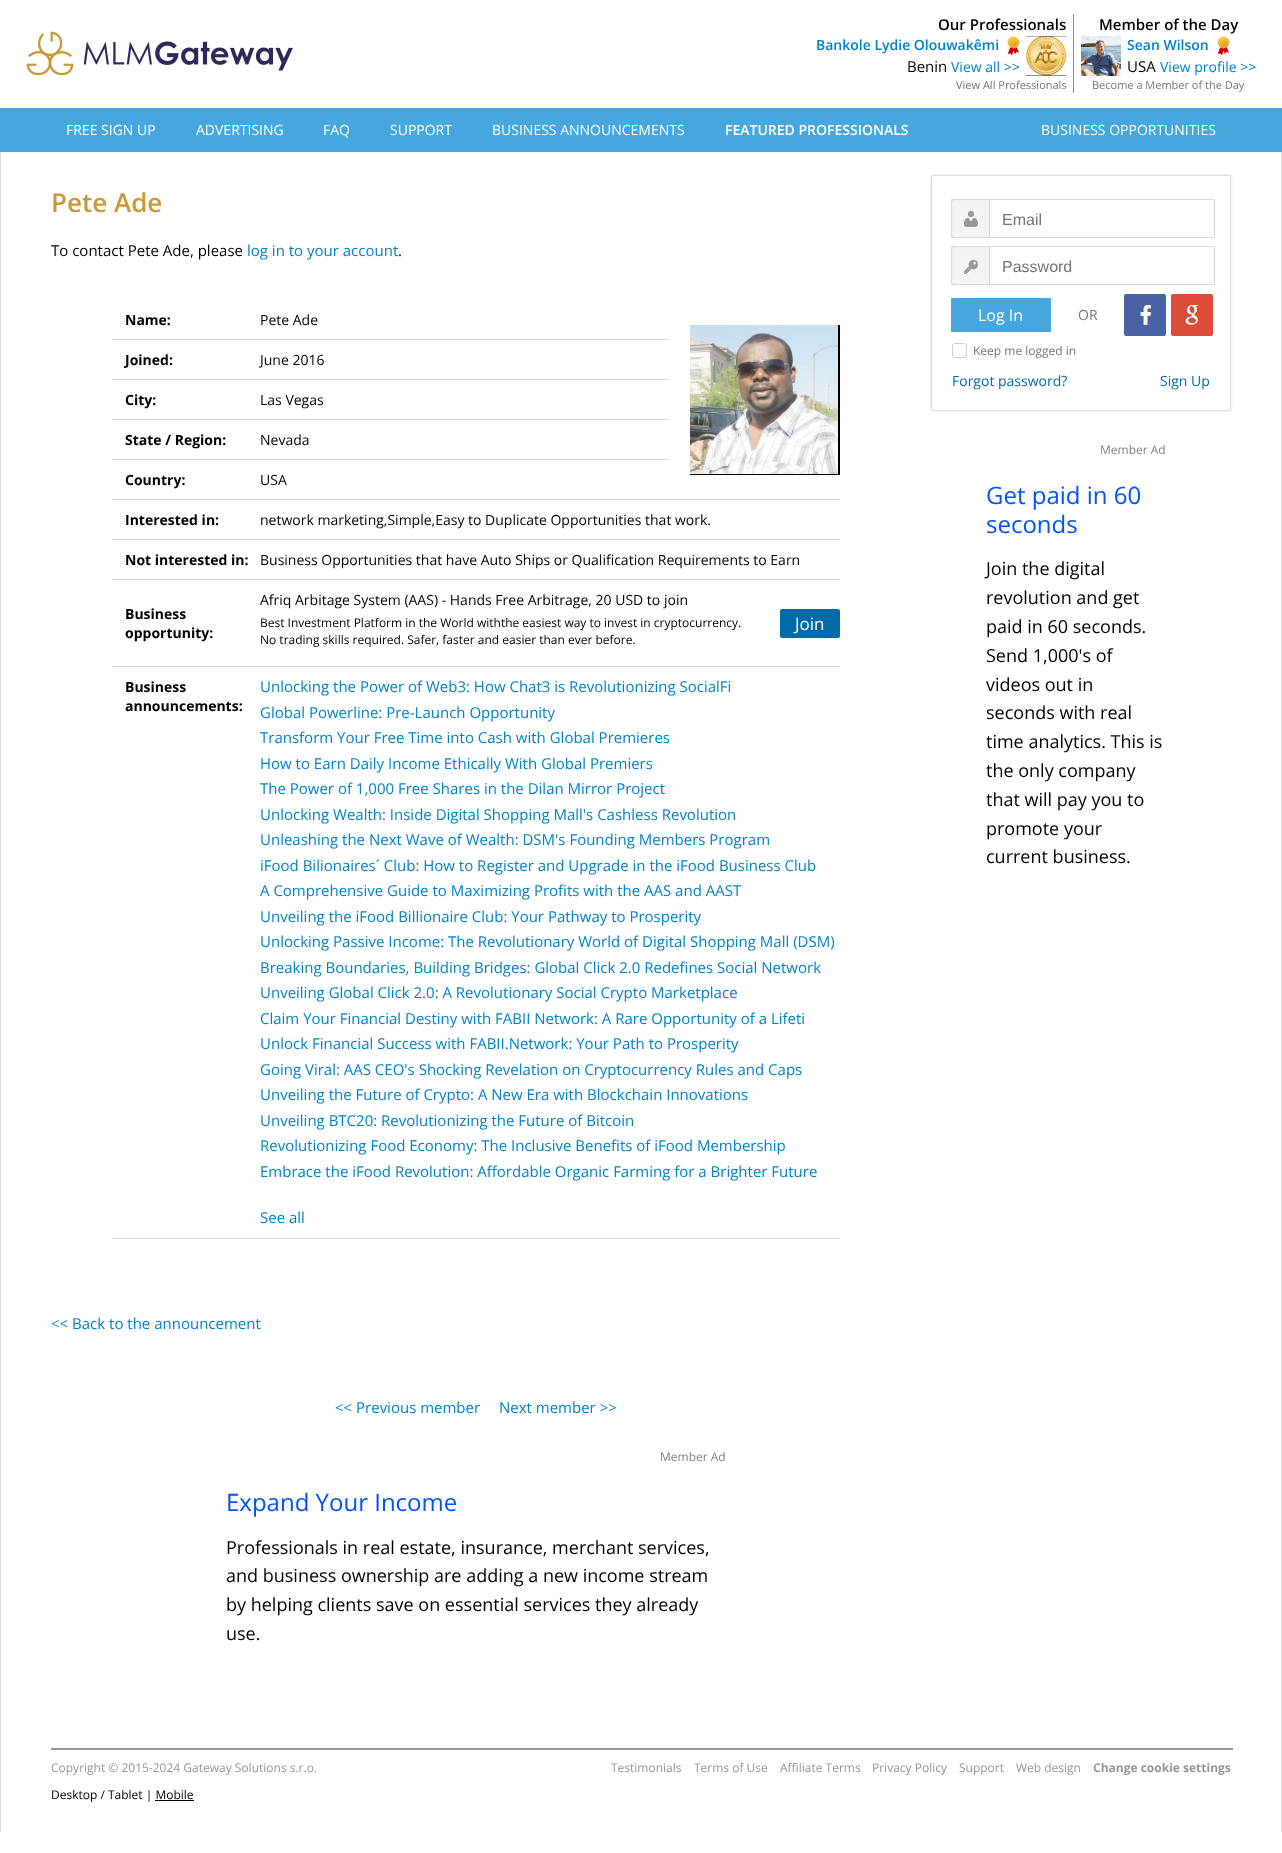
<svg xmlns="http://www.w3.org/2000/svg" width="1282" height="1853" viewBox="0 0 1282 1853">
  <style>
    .t1 { font: 600 15px Open Sans; fill: #000; }
    .t2 { font: 600 14px Open Sans; fill: #0082c8; }
    .t3 { font: 15px Open Sans; fill: #000; }
    .t4 { font: 14px Open Sans; fill: #0082c8; }
    .t5 { font: 11px Open Sans; fill: #757575; }
    .t6 { font: 14px Open Sans; fill: #fff; }
    .t7 { font: 600 14px Open Sans; fill: #fff; }
    .t8 { font: 600 26px Open Sans; fill: #c99937; }
    .t9 { font: 15px Open Sans; fill: #0082c8; }
    .t10 { font: bold 14px Open Sans; fill: #000; }
    .t11 { font: 14px Open Sans; fill: #000; }
    .t12 { font: 12px Open Sans; fill: #000; }
    .t13 { font: 17px Open Sans; fill: #fff; }
    .t14 { font: 12px Open Sans; fill: #808080; }
    .t15 { font: 24px Open Sans; fill: #0053f9; }
    .t16 { font: 18px Open Sans; fill: #000; }
    .t17 { font: 16px Liberation Sans; fill: #757575; }
    .t18 { font: 16px Open Sans; fill: #fff; }
    .t19 { font: 14px Open Sans; fill: #757575; }
    .t20 { font: 12px Open Sans; fill: #757575; }
    .t21 { font: 14px Open Sans; fill: #016ba7; }
    .t22 { font: 12px Open Sans; fill: #959595; }
    .t23 { font: bold 12px Open Sans; fill: #959595; }
  </style>
  <rect width="100%" height="100%" fill="#fff"/>
  <image x="26" y="31" width="267" height="45" href="images/1.png"/>
  <text x="938" y="30" class="t1">Our Professionals</text>
  <text x="816" y="50" class="t2">Bankole Lydie Olouwakêmi</text>
  <image x="1007" y="36" width="13" height="20" href="images/2.png"/>
  <text x="907" y="72" class="t3">Benin</text>
  <text x="951" y="72" class="t4">View all &gt;&gt;</text>
  <image x="1026" y="36" width="40" height="40" href="images/3.png"/>
  <text x="956" y="89" class="t5">View All Professionals</text>
  <rect x="1073" y="14" width="1" height="79" fill="#8b8b8b"/>
  <text x="1099" y="30" class="t1">Member of the Day</text>
  <image x="1081" y="36" width="40" height="40" href="images/4.png"/>
  <text x="1127" y="50" class="t2">Sean Wilson</text>
  <image x="1217" y="36" width="13" height="20" href="images/2.png"/>
  <text x="1127" y="72" class="t3">USA</text>
  <text x="1160" y="72" class="t4">View profile &gt;&gt;</text>
  <text x="1092" y="89" class="t5">Become a Member of the Day</text>
  <rect x="0" y="108" width="1282" height="44" fill="#46a7de"/>
  <text x="66" y="135" class="t6">FREE SIGN UP</text>
  <text x="196" y="135" class="t6">ADVERTISING</text>
  <text x="323" y="135" class="t6">FAQ</text>
  <text x="390" y="135" class="t6">SUPPORT</text>
  <text x="492" y="135" class="t6">BUSINESS ANNOUNCEMENTS</text>
  <text x="725" y="135" class="t7">FEATURED PROFESSIONALS</text>
  <text x="1041" y="135" class="t6">BUSINESS OPPORTUNITIES</text>
  <rect x="1281" y="152" width="1" height="1680" fill="#d9d9d9"/>
  <rect x="0" y="152" width="1" height="1680" fill="#d9d9d9"/>
  <text x="51" y="212" class="t8">Pete Ade</text>
  <text x="51" y="256" class="t3">To contact Pete Ade, please</text>
  <text x="247" y="256" class="t9">log in to your account</text>
  <text x="398" y="256" class="t3">.</text>
  <text x="125" y="325" class="t10">Name:</text>
  <rect x="112" y="339" width="558" height="1" fill="#dcdcdc"/>
  <text x="260" y="325" class="t11">Pete Ade</text>
  <image x="690" y="325" width="150" height="150" href="images/5.png"/>
  <text x="125" y="365" class="t10">Joined:</text>
  <rect x="112" y="379" width="558" height="1" fill="#dcdcdc"/>
  <text x="260" y="365" class="t11">June 2016</text>
  <text x="125" y="405" class="t10">City:</text>
  <rect x="112" y="419" width="558" height="1" fill="#dcdcdc"/>
  <text x="260" y="405" class="t11">Las Vegas</text>
  <text x="125" y="445" class="t10">State / Region:</text>
  <rect x="112" y="459" width="558" height="1" fill="#dcdcdc"/>
  <text x="260" y="445" class="t11">Nevada</text>
  <text x="125" y="485" class="t10">Country:</text>
  <text x="260" y="485" class="t11">USA</text>
  <text x="125" y="525" class="t10">Interested in:</text>
  <rect x="112" y="499" width="728" height="1" fill="#dcdcdc"/>
  <rect x="112" y="539" width="728" height="1" fill="#dcdcdc"/>
  <text x="260" y="525" class="t11">network marketing,Simple,Easy to Duplicate Opportunities that work.</text>
  <text x="125" y="565" class="t10">Not interested in:</text>
  <rect x="112" y="579" width="728" height="1" fill="#dcdcdc"/>
  <text x="260" y="565" class="t11">Business Opportunities that have Auto Ships or Qualification Requirements to Earn</text>
  <text x="125" y="619" class="t10">Business</text>
  <text x="125" y="638" class="t10">opportunity:</text>
  <rect x="112" y="666" width="728" height="1" fill="#dcdcdc"/>
  <text x="260" y="605" class="t11">Afriq Arbitage System (AAS) - Hands Free Arbitrage, 20 USD to join</text>
  <text x="260" y="627" class="t12">Best Investment Platform in the World withthe easiest way to invest in cryptocurrency.</text>
  <text x="260" y="644" class="t12">No trading skills required. Safer, faster and easier than ever before.</text>
  <rect x="780" y="609" width="60" height="29" rx="2" fill="#016ba7"/>
  <text x="795" y="630" class="t13">Join</text>
  <text x="125" y="692" class="t10">Business</text>
  <text x="125" y="711" class="t10">announcements:</text>
  <rect x="112" y="1238" width="728" height="1" fill="#dcdcdc"/>
  <text x="260" y="692" class="t9">Unlocking the Power of Web3: How Chat3 is Revolutionizing SocialFi</text>
  <text x="260" y="718" class="t9">Global Powerline: Pre-Launch Opportunity</text>
  <text x="260" y="743" class="t9">Transform Your Free Time into Cash with Global Premieres</text>
  <text x="260" y="769" class="t9">How to Earn Daily Income Ethically With Global Premiers</text>
  <text x="260" y="794" class="t9">The Power of 1,000 Free Shares in the Dilan Mirror Project</text>
  <text x="260" y="820" class="t9">Unlocking Wealth: Inside Digital Shopping Mall's Cashless Revolution</text>
  <text x="260" y="845" class="t9">Unleashing the Next Wave of Wealth: DSM's Founding Members Program</text>
  <text x="260" y="871" class="t9">iFood Bilionaires´ Club: How to Register and Upgrade in the iFood Business Club</text>
  <text x="260" y="896" class="t9">A Comprehensive Guide to Maximizing Profits with the AAS and AAST</text>
  <text x="260" y="922" class="t9">Unveiling the iFood Billionaire Club: Your Pathway to Prosperity</text>
  <text x="260" y="947" class="t9">Unlocking Passive Income: The Revolutionary World of Digital Shopping Mall (DSM)</text>
  <text x="260" y="973" class="t9">Breaking Boundaries, Building Bridges: Global Click 2.0 Redefines Social Network</text>
  <text x="260" y="998" class="t9">Unveiling Global Click 2.0: A Revolutionary Social Crypto Marketplace</text>
  <text x="260" y="1024" class="t9">Claim Your Financial Destiny with FABII Network: A Rare Opportunity of a Lifeti</text>
  <text x="260" y="1049" class="t9">Unlock Financial Success with FABII.Network: Your Path to Prosperity</text>
  <text x="260" y="1075" class="t9">Going Viral: AAS CEO's Shocking Revelation on Cryptocurrency Rules and Caps</text>
  <text x="260" y="1100" class="t9">Unveiling the Future of Crypto: A New Era with Blockchain Innovations</text>
  <text x="260" y="1126" class="t9">Unveiling BTC20: Revolutionizing the Future of Bitcoin</text>
  <text x="260" y="1151" class="t9">Revolutionizing Food Economy: The Inclusive Benefits of iFood Membership</text>
  <text x="260" y="1177" class="t9">Embrace the iFood Revolution: Affordable Organic Farming for a Brighter Future</text>
  <text x="260" y="1223" class="t9">See all</text>
  <text x="51" y="1329" class="t9">&lt;&lt; Back to the announcement</text>
  <text x="335" y="1413" class="t9">&lt;&lt; Previous member</text>
  <text x="499" y="1413" class="t9">Next member &gt;&gt;</text>
  <text x="660" y="1461" class="t14">Member Ad</text>
  <text x="226" y="1511" class="t15">Expand Your Income</text>
  <text x="226" y="1554" class="t16">Professionals in real estate, insurance, merchant services,</text>
  <text x="226" y="1582" class="t16">and business ownership are adding a new income stream</text>
  <text x="226" y="1611" class="t16">by helping clients save on essential services they already</text>
  <text x="226" y="1640" class="t16">use.</text>
  <rect x="931" y="175" width="300" height="236" rx="2" fill="#dadada" filter="blur(1px)"/>
  <rect x="931.5" y="175.5" width="299" height="235" rx="1.5" fill="#fff" stroke="#dcdcdc"/>
  <image x="952" y="200" width="38" height="37" href="images/6.png"/>
  <rect x="951.5" y="199.5" width="263" height="38" rx="0.5" fill="none" stroke="#d9d9d9"/>
  <text x="1002" y="225" class="t17">Email</text>
  <image x="952" y="247" width="38" height="37" href="images/7.png"/>
  <rect x="951.5" y="246.5" width="263" height="38" rx="0.5" fill="none" stroke="#d9d9d9"/>
  <text x="1002" y="272" class="t17">Password</text>
  <rect x="951" y="298" width="100" height="34" rx="1" fill="#46a7de"/>
  <text x="978" y="321" class="t18">Log In</text>
  <text x="1078" y="320" class="t19">OR</text>
  <image x="1124" y="294" width="42" height="42" href="images/8.png"/>
  <image x="1171" y="294" width="42" height="42" href="images/9.png"/>
  <image x="952" y="343" width="15" height="15" href="images/10.png"/>
  <text x="973" y="355" class="t20">Keep me logged in</text>
  <text x="952" y="386" class="t21">Forgot password?</text>
  <text x="1160" y="386" class="t21">Sign Up</text>
  <text x="1100" y="454" class="t14">Member Ad</text>
  <text x="986" y="504" class="t15">Get paid in 60</text>
  <text x="986" y="533" class="t15">seconds</text>
  <text x="986" y="575" class="t16">Join the digital</text>
  <text x="986" y="604" class="t16">revolution and get</text>
  <text x="986" y="633" class="t16">paid in 60 seconds.</text>
  <text x="986" y="662" class="t16">Send 1,000's of</text>
  <text x="986" y="691" class="t16">videos out in</text>
  <text x="986" y="719" class="t16">seconds with real</text>
  <text x="986" y="748" class="t16">time analytics. This is</text>
  <text x="986" y="777" class="t16">the only company</text>
  <text x="986" y="806" class="t16">that will pay you to</text>
  <text x="986" y="835" class="t16">promote your</text>
  <text x="986" y="863" class="t16">current business.</text>
  <rect x="51" y="1748" width="1182" height="2" fill="#969696"/>
  <text x="51" y="1772" class="t22">Copyright © 2015-2024 Gateway Solutions s.r.o.</text>
  <text x="611" y="1772" class="t22">Testimonials</text>
  <text x="694" y="1772" class="t22">Terms of Use</text>
  <text x="780" y="1772" class="t22">Affiliate Terms</text>
  <text x="872" y="1772" class="t22">Privacy Policy</text>
  <text x="959" y="1772" class="t22">Support</text>
  <text x="1016" y="1772" class="t22">Web design</text>
  <text x="1093" y="1772" class="t23">Change cookie settings</text>
  <text x="51" y="1799" class="t12">Desktop / Tablet | Mobile</text>
  <rect x="155" y="1800" width="39" height="1" fill="#000"/>
</svg>
